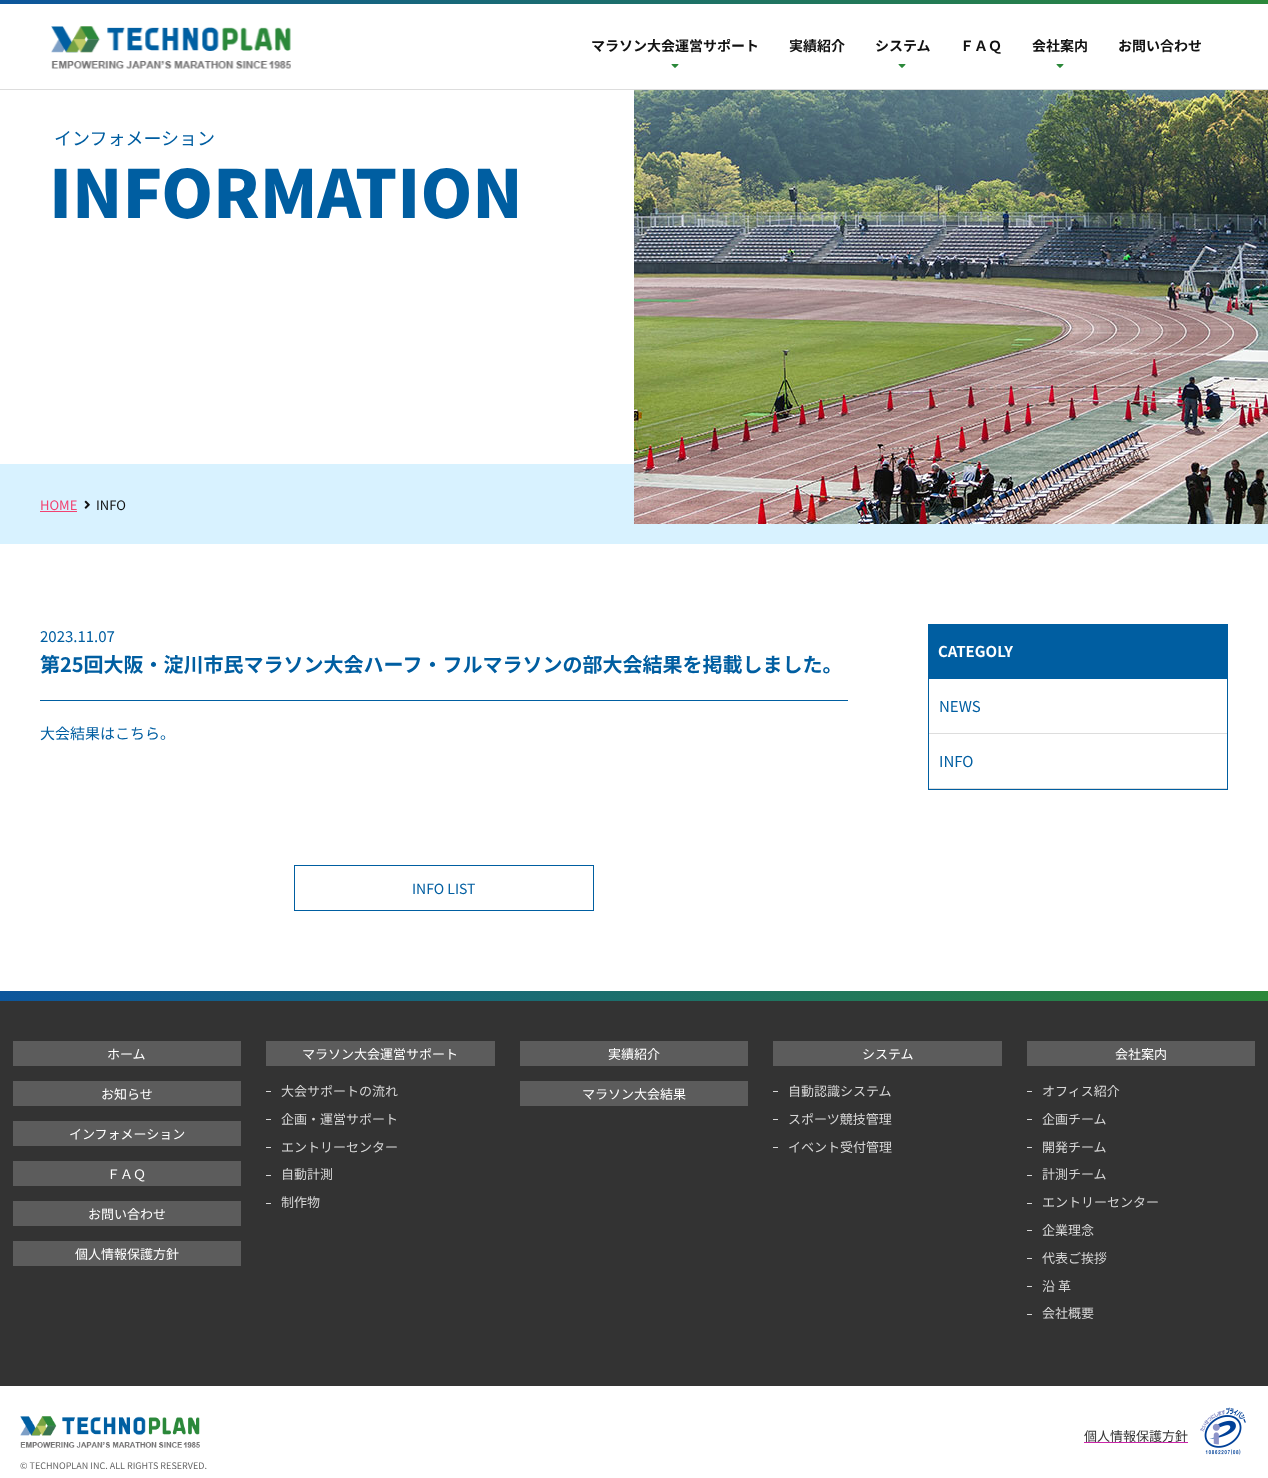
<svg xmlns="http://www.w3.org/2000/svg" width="1268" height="1478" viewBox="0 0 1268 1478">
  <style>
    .t1 { font: bold 14px Noto Sans JP; fill: #111; }
    .t2 { font: 18px Noto Sans JP; fill: #005ea1; }
    .t3 { font: 900 66px Noto Sans JP; fill: #005ea1; }
    .t4 { font: 13px Noto Sans JP; fill: #f24271; }
    .t5 { font: 13px Noto Sans JP; fill: #111; }
    .t6 { font: 15px Noto Sans JP; fill: #005ea1; }
    .t7 { font: bold 20px Noto Sans JP; fill: #005ea1; }
    .t8 { font: 14px Noto Sans JP; fill: #005ea1; }
    .t9 { font: bold 15px Noto Sans JP; fill: #fff; }
    .t10 { font: 13px Noto Sans JP; fill: #fff; }
    .t11 { font: 13px Noto Sans JP; fill: #d6d6d6; }
    .t12 { font: 13px Noto Sans JP; fill: #333; }
    .t13 { font: 9px Noto Sans JP; fill: #666; }
  </style>
  <defs>
    <linearGradient id="g1" gradientUnits="userSpaceOnUse" x1="0" y1="2" x2="1268" y2="2"><stop offset="0" stop-color="#0d569c"/><stop offset="1" stop-color="#2b883a"/></linearGradient>
    <linearGradient id="g2" gradientUnits="userSpaceOnUse" x1="0" y1="996" x2="1268" y2="996"><stop offset="0" stop-color="#0d569c"/><stop offset="1" stop-color="#2b883a"/></linearGradient>
  </defs>
  <rect width="100%" height="100%" fill="#fff"/>
  <rect x="0" y="89" width="1268" height="1" fill="#ddd"/>
  <rect x="0" y="0" width="1268" height="4" fill="url(#g1)"/>
  <image x="51" y="26" width="240" height="43" href="images/1.png"/>
  <text x="591" y="51" class="t1">マラソン大会運営サポート</text>
  <image x="671" y="64" width="8" height="4" href="images/2.png"/>
  <text x="789" y="51" class="t1">実績紹介</text>
  <text x="875" y="51" class="t1">システム</text>
  <image x="898" y="64" width="8" height="4" href="images/2.png"/>
  <text x="960" y="51" class="t1">ＦＡＱ</text>
  <text x="1032" y="51" class="t1">会社案内</text>
  <image x="1056" y="64" width="8" height="4" href="images/2.png"/>
  <text x="1118" y="51" class="t1">お問い合わせ</text>
  <text x="54" y="145" class="t2">インフォメーション</text>
  <text x="49" y="218" class="t3">INFORMATION</text>
  <rect x="0" y="464" width="1268" height="80" fill="#d8f2ff"/>
  <image x="634" y="90" width="634" height="434" href="images/3.png"/>
  <text x="40" y="510" class="t4">HOME</text>
  <rect x="40" y="511" width="37" height="1" fill="#f24271"/>
  <image x="84" y="500" width="6" height="9" href="images/4.png"/>
  <text x="96" y="510" class="t5">INFO</text>
  <text x="40" y="642" class="t6">2023.11.07</text>
  <rect x="40" y="700" width="808" height="1" fill="#005ea1"/>
  <text x="40" y="672" class="t7">第25回大阪・淀川市民マラソン大会ハーフ・フルマラソンの部大会結果を掲載しました。</text>
  <text x="40" y="739" class="t6">大会結果はこちら。</text>
  <rect x="294.5" y="865.5" width="299" height="45" fill="none" stroke="#005ea1"/>
  <text x="412" y="894" class="t8">INFO LIST</text>
  <rect x="928" y="624" width="300" height="54" fill="#005ea1"/>
  <text x="938" y="657" class="t9">CATEGOLY</text>
  <rect x="928.5" y="678.5" width="299" height="111" fill="none" stroke="#005ea1"/>
  <rect x="929" y="733" width="298" height="1" fill="#ddd"/>
  <text x="939" y="712" class="t6">NEWS</text>
  <rect x="929" y="788" width="298" height="1" fill="#ddd"/>
  <text x="939" y="767" class="t6">INFO</text>
  <rect x="0" y="1001" width="1268" height="385" fill="#333"/>
  <rect x="0" y="991" width="1268" height="10" fill="url(#g2)"/>
  <rect x="13" y="1041" width="228" height="25" fill="#5c5c5c"/>
  <text x="107" y="1059" class="t10">ホーム</text>
  <rect x="13" y="1081" width="228" height="25" fill="#5c5c5c"/>
  <text x="101" y="1099" class="t10">お知らせ</text>
  <rect x="13" y="1121" width="228" height="25" fill="#5c5c5c"/>
  <text x="69" y="1139" class="t10">インフォメーション</text>
  <rect x="13" y="1161" width="228" height="25" fill="#5c5c5c"/>
  <text x="107" y="1179" class="t10">ＦＡＱ</text>
  <rect x="13" y="1201" width="228" height="25" fill="#5c5c5c"/>
  <text x="88" y="1219" class="t10">お問い合わせ</text>
  <rect x="13" y="1241" width="228" height="25" fill="#5c5c5c"/>
  <text x="75" y="1259" class="t10">個人情報保護方針</text>
  <rect x="266" y="1041" width="229" height="25" fill="#5c5c5c"/>
  <text x="302" y="1059" class="t10">マラソン大会運営サポート</text>
  <rect x="266" y="1091" width="5" height="1" fill="#d6d6d6"/>
  <text x="281" y="1096" class="t11">大会サポートの流れ</text>
  <rect x="266" y="1119" width="5" height="1" fill="#d6d6d6"/>
  <text x="281" y="1124" class="t11">企画・運営サポート</text>
  <rect x="266" y="1147" width="5" height="1" fill="#d6d6d6"/>
  <text x="281" y="1152" class="t11">エントリーセンター</text>
  <rect x="266" y="1175" width="5" height="1" fill="#d6d6d6"/>
  <text x="281" y="1179" class="t11">自動計測</text>
  <rect x="266" y="1203" width="5" height="1" fill="#d6d6d6"/>
  <text x="281" y="1207" class="t11">制作物</text>
  <rect x="520" y="1041" width="228" height="25" fill="#5c5c5c"/>
  <text x="608" y="1059" class="t10">実績紹介</text>
  <rect x="520" y="1081" width="228" height="25" fill="#5c5c5c"/>
  <text x="582" y="1099" class="t10">マラソン大会結果</text>
  <rect x="773" y="1041" width="229" height="25" fill="#5c5c5c"/>
  <text x="862" y="1059" class="t10">システム</text>
  <rect x="773" y="1091" width="5" height="1" fill="#d6d6d6"/>
  <text x="788" y="1096" class="t11">自動認識システム</text>
  <rect x="773" y="1119" width="5" height="1" fill="#d6d6d6"/>
  <text x="788" y="1124" class="t11">スポーツ競技管理</text>
  <rect x="773" y="1147" width="5" height="1" fill="#d6d6d6"/>
  <text x="788" y="1152" class="t11">イベント受付管理</text>
  <rect x="1027" y="1041" width="228" height="25" fill="#5c5c5c"/>
  <text x="1115" y="1059" class="t10">会社案内</text>
  <rect x="1027" y="1091" width="5" height="1" fill="#d6d6d6"/>
  <text x="1042" y="1096" class="t11">オフィス紹介</text>
  <rect x="1027" y="1119" width="5" height="1" fill="#d6d6d6"/>
  <text x="1042" y="1124" class="t11">企画チーム</text>
  <rect x="1027" y="1147" width="5" height="1" fill="#d6d6d6"/>
  <text x="1042" y="1152" class="t11">開発チーム</text>
  <rect x="1027" y="1175" width="5" height="1" fill="#d6d6d6"/>
  <text x="1042" y="1179" class="t11">計測チーム</text>
  <rect x="1027" y="1203" width="5" height="1" fill="#d6d6d6"/>
  <text x="1042" y="1207" class="t11">エントリーセンター</text>
  <rect x="1027" y="1230" width="5" height="1" fill="#d6d6d6"/>
  <text x="1042" y="1235" class="t11">企業理念</text>
  <rect x="1027" y="1258" width="5" height="1" fill="#d6d6d6"/>
  <text x="1042" y="1263" class="t11">代表ご挨拶</text>
  <rect x="1027" y="1286" width="5" height="1" fill="#d6d6d6"/>
  <text x="1042" y="1291" class="t11">沿 革</text>
  <rect x="1027" y="1314" width="5" height="1" fill="#d6d6d6"/>
  <text x="1042" y="1318" class="t11">会社概要</text>
  <rect x="1084" y="1442" width="104" height="1" fill="#ca26a9"/>
  <text x="1084" y="1441" class="t12">個人情報保護方針</text>
  <image x="1200" y="1407" width="46" height="48" href="images/5.png"/>
  <image x="20" y="1416" width="180" height="32" href="images/6.png"/>
  <text x="20" y="1469" class="t13">© TECHNOPLAN INC. ALL RIGHTS RESERVED.</text>
</svg>
